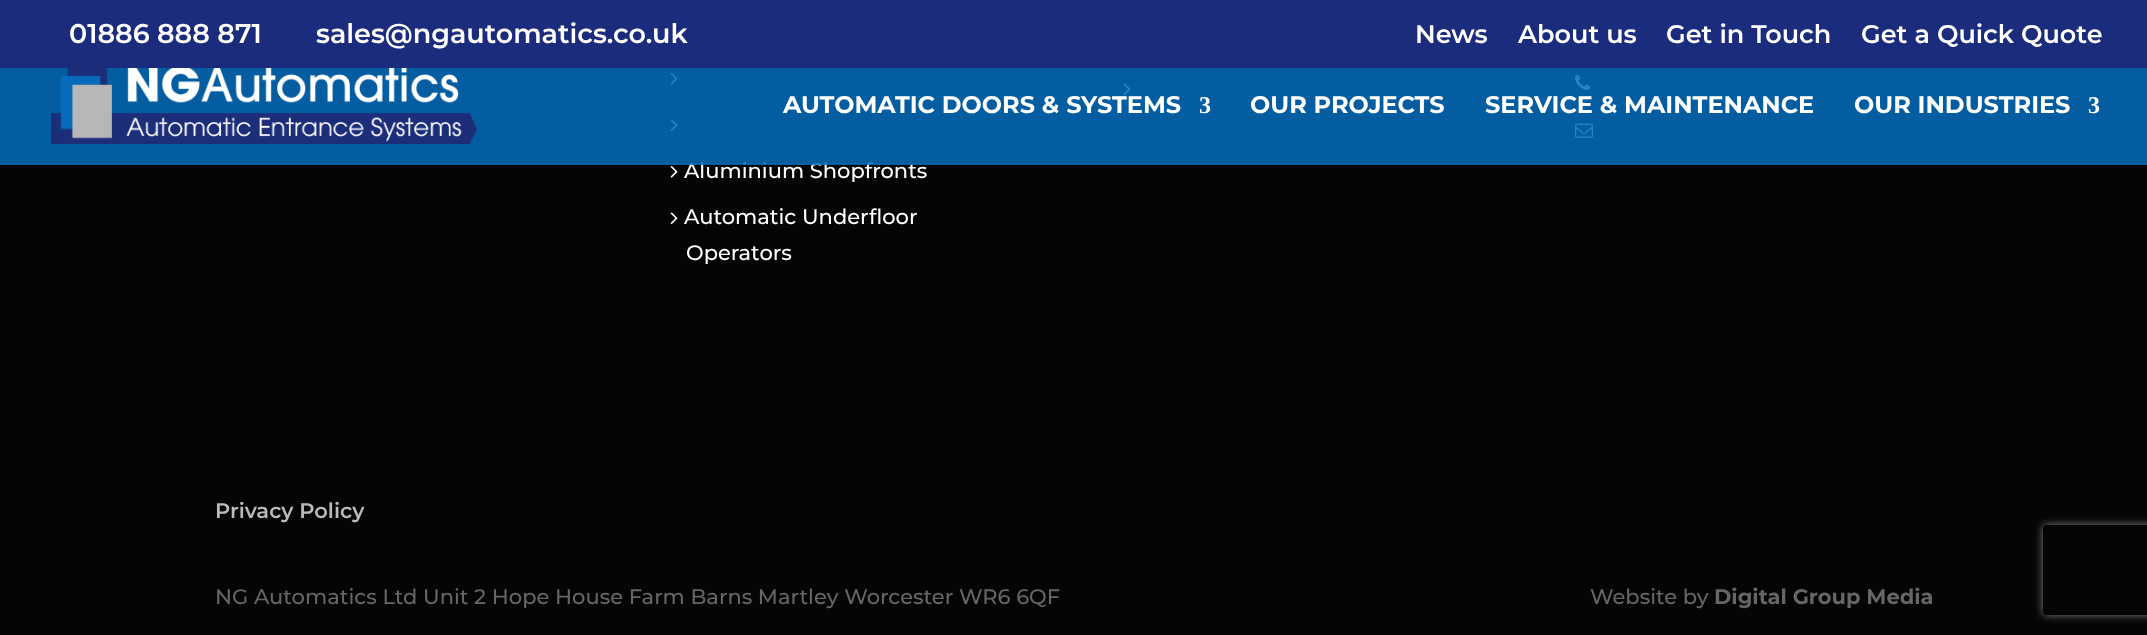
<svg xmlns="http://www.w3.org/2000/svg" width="2147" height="635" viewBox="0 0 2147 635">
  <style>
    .t1 { font: 600 27px Montserrat; fill: #fff; }
    .t2 { font: 600 25.5px Montserrat; fill: #fff; }
    .t3 { font: 500 21px Montserrat; fill: #fff; }
    .t4 { font: bold 24px Montserrat; fill: #fff; }
    .t5 { font: bold 24px Liberation Serif; fill: #fff; }
    .t6 { font: 600 21px Montserrat; fill: #bbb; }
    .t7 { font: 500 21px Montserrat; fill: #666; }
    .t8 { font: bold 21px Montserrat; fill: #666; }
  </style>
  <defs>
    <clipPath id="clip1"><path d="M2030 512H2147V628H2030ZM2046 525H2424C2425.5 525 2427 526.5 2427 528V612C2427 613.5 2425.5 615 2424 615H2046C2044.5 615 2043 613.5 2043 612V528C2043 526.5 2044.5 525 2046 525Z" clip-rule="evenodd"/></clipPath>
  </defs>
  <rect width="100%" height="100%" fill="#050505"/>
  <rect x="0" y="0" width="2147" height="68" fill="#1c2c7c"/>
  <text x="69" y="43" class="t1">01886 888 871</text>
  <text x="316" y="43" class="t1">sales@ngautomatics.co.uk</text>
  <text x="1415" y="43" class="t2">News</text>
  <text x="1518" y="43" class="t2">About us</text>
  <text x="1666" y="43" class="t2">Get in Touch</text>
  <text x="1861" y="43" class="t2">Get a Quick Quote</text>
  <image x="1123" y="83" width="8" height="12" href="images/2.png"/>
  <image x="1575" y="74" width="16" height="16" href="images/3.png"/>
  <image x="1575" y="123" width="18" height="15" href="images/4.png"/>
  <image x="670" y="73" width="8" height="12" href="images/5.png"/>
  <image x="670" y="119" width="8" height="12" href="images/2.png"/>
  <text x="684" y="178" class="t3">Aluminium Shopfronts</text>
  <rect x="0" y="68" width="2147" height="97" fill="#056cbcdb"/>
  <image x="51" y="68" width="426" height="76" href="images/1.png"/>
  <text x="783" y="113" class="t4">AUTOMATIC DOORS &amp; SYSTEMS</text>
  <text x="1199" y="113" class="t5">3</text>
  <text x="1250" y="113" class="t4">OUR PROJECTS</text>
  <text x="1485" y="113" class="t4">SERVICE &amp; MAINTENANCE</text>
  <text x="1854" y="113" class="t4">OUR INDUSTRIES</text>
  <text x="2088" y="113" class="t5">3</text>
  <image x="670" y="166" width="8" height="12" href="images/5.png"/>
  <image x="670" y="212" width="8" height="12" href="images/2.png"/>
  <text x="684" y="224" class="t3">Automatic Underfloor</text>
  <text x="686" y="260" class="t3">Operators</text>
  <text x="215" y="518" class="t6">Privacy Policy</text>
  <text x="215" y="604" class="t7">NG Automatics Ltd Unit 2 Hope House Farm Barns Martley Worcester WR6 6QF</text>
  <text x="1590" y="604" class="t7">Website by</text>
  <text x="1714" y="604" class="t8">Digital Group Media</text>
  <g clip-path="url(#clip1)">
    <rect x="2043" y="525" width="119" height="90" rx="3" fill="#808080" filter="blur(4px)"/>
  </g>
</svg>
